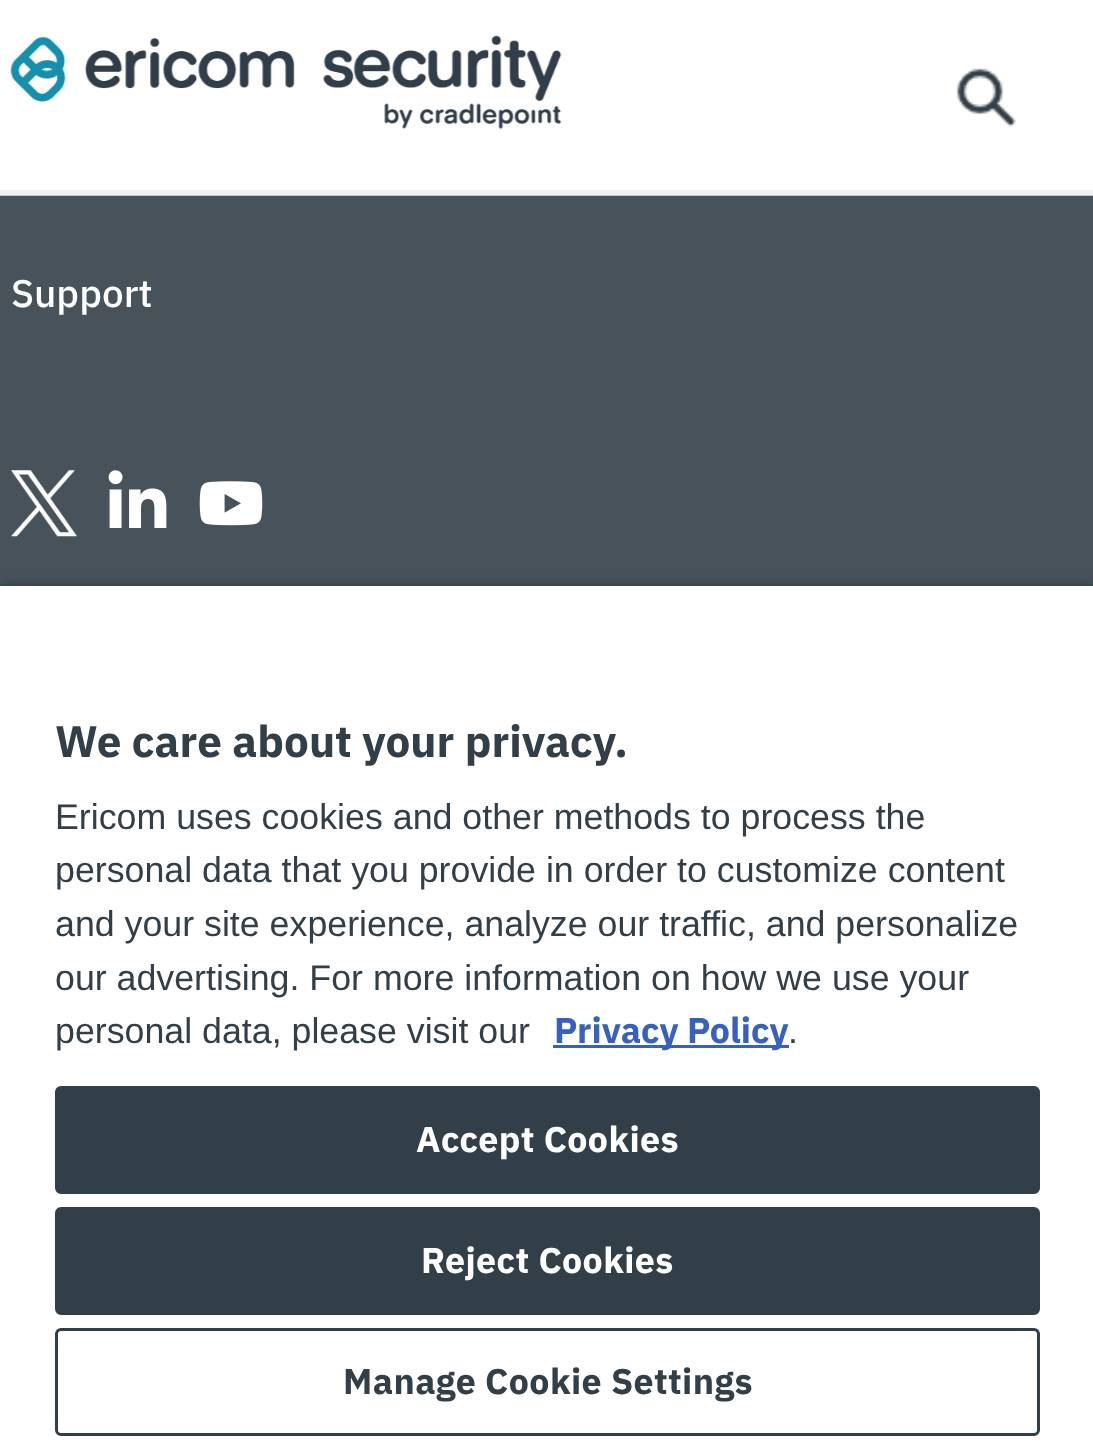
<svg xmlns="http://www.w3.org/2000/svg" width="1093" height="1447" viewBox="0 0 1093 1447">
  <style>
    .t1 { font: 500 38.5px IBM Plex Sans; fill: #fff; }
    .t2 { font: bold 44px IBM Plex Sans; fill: #333f48; }
    .t3 { font: 35.75px Liberation Sans; fill: #333f48; }
    .t4 { font: bold 35.75px IBM Plex Sans; fill: #3860be; }
    .t5 { font: bold 35.75px IBM Plex Sans; letter-spacing: 0.4px; fill: #fff; }
    .t6 { font: bold 35.75px IBM Plex Sans; letter-spacing: 0.4px; fill: #333f48; }
  </style>
  <rect width="100%" height="100%" fill="#47525a"/>
  <rect x="0" y="0" width="1093" height="195" fill="#fff"/>
  <rect x="0" y="190" width="1093" height="6" fill="#eeeeeebf"/>
  <image x="10" y="35" width="552" height="95" href="images/1.png"/>
  <image x="956" y="68" width="61" height="59" href="images/2.png"/>
  <text x="11" y="307" class="t1">Support</text>
  <image x="11" y="470" width="66" height="67" href="images/3.png"/>
  <image x="108" y="470" width="59" height="58" href="images/4.png"/>
  <image x="199" y="481" width="64" height="45" href="images/5.png"/>
  <rect x="0" y="586" width="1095" height="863" fill="#00000059" filter="blur(5.5px)"/>
  <rect x="0" y="586" width="1093" height="861" fill="#fff"/>
  <text x="55" y="757" class="t2">We care about your privacy.</text>
  <text x="55" y="829" class="t3">Ericom uses cookies and other methods to process the</text>
  <text x="55" y="882" class="t3">personal data that you provide in order to customize content</text>
  <text x="55" y="936" class="t3">and your site experience, analyze our traffic, and personalize</text>
  <text x="55" y="990" class="t3">our advertising. For more information on how we use your</text>
  <text x="55" y="1043" class="t3">personal data, please visit our</text>
  <rect x="553" y="1045" width="236" height="3" fill="#3860be"/>
  <text x="554" y="1043" class="t4">Privacy Policy</text>
  <text x="788" y="1043" class="t3">.</text>
  <rect x="56.5" y="1087.5" width="982" height="105" rx="4.5" fill="#333f48" stroke="#333f48" stroke-width="3"/>
  <text x="416" y="1152" class="t5">Accept Cookies</text>
  <rect x="56.5" y="1208.5" width="982" height="105" rx="4.5" fill="#333f48" stroke="#333f48" stroke-width="3"/>
  <text x="421" y="1273" class="t5">Reject Cookies</text>
  <rect x="56.5" y="1329.5" width="982" height="105" rx="4.5" fill="none" stroke="#333f48" stroke-width="3"/>
  <text x="343" y="1394" class="t6">Manage Cookie Settings</text>
</svg>
